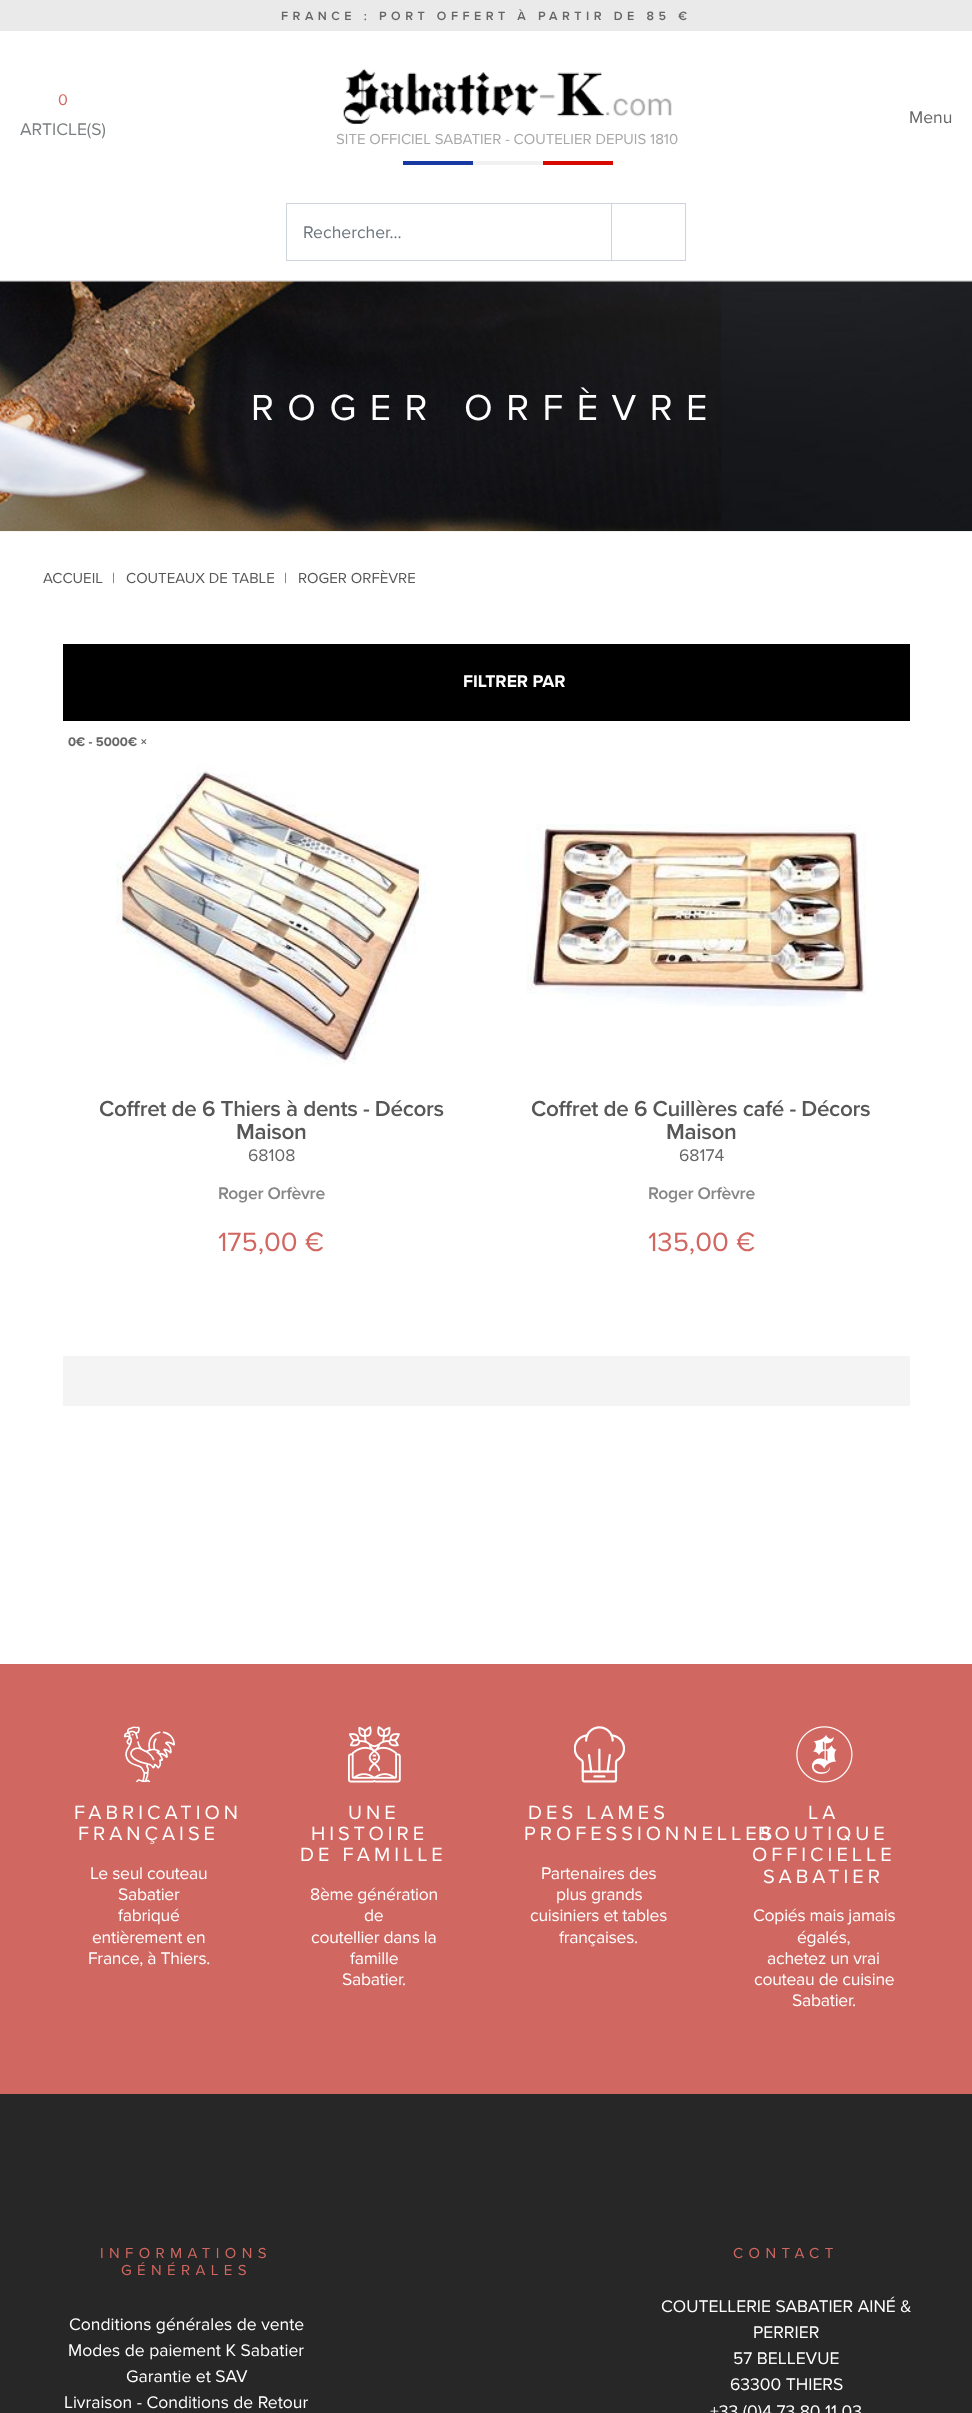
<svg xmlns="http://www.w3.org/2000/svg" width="972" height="2413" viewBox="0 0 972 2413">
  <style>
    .t1 { font: 600 12.5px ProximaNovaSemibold; letter-spacing: 4.5px; fill: #666; }
    .t2 { font: 16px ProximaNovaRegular; fill: #d16761; }
    .t3 { font: 17.5px ProximaNovaRegular; fill: #7d8082; }
    .t4 { font: 17.5px ProximaNovaRegular; fill: #666; }
    .t5 { font: 15px ProximaNovaRegular; fill: #a9a8a8; }
    .t6 { font: 17.5px ProximaNovaRegular; fill: #6c757d; }
    .t7 { font: 37.5px ProximaNovaRegular; letter-spacing: 13.5px; fill: #fff; }
    .t8 { font: 15px ProximaNovaRegular; fill: #575757; }
    .t9 { font: 15px ProximaNovaRegular; fill: #6c757d; }
    .t10 { font: bold 17.5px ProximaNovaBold; fill: #fff; }
    .t11 { font: bold 13px ProximaNovaBold; fill: #666; }
    .t12 { font: 600 22.5px ProximaNovaSemibold; letter-spacing: -0.35px; fill: #575757; }
    .t13 { font: 600 17.5px ProximaNovaSemibold; letter-spacing: -0.25px; fill: #878787; }
    .t14 { font: 27.5px ProximaNovaRegular; fill: #d16761; }
    .t15 { font: 20px ProximaNovaRegular; letter-spacing: 4px; fill: #fff; }
    .t16 { font: 17.5px ProximaNovaRegular; letter-spacing: -0.25px; fill: #fff; }
    .t17 { font: 15px ProximaNovaRegular; letter-spacing: 5.4px; fill: #d16761; }
    .t18 { font: 17.5px ProximaNovaRegular; fill: #fff; }
  </style>
  <rect width="100%" height="100%" fill="#fff"/>
  <rect x="0" y="280" width="972" height="1" fill="#e1e1e1"/>
  <rect x="0" y="0" width="972" height="31" fill="#eaeaea"/>
  <text x="281" y="20" class="t1">FRANCE : PORT OFFERT À PARTIR DE 85 €</text>
  <text x="58" y="105" class="t2">0</text>
  <text x="20" y="135" class="t3">ARTICLE(S)</text>
  <text x="909" y="123" class="t4">Menu</text>
  <image x="343" y="68" width="329" height="56" href="images/1.png"/>
  <text x="336" y="144" class="t5">SITE OFFICIEL SABATIER - COUTELIER DEPUIS 1810</text>
  <rect x="473" y="161" width="70" height="4" fill="#f1f1f1"/>
  <rect x="403" y="161" width="70" height="4" fill="#1839a2"/>
  <rect x="543" y="161" width="70" height="4" fill="#d80900"/>
  <rect x="286.5" y="203.5" width="326" height="57" fill="none" stroke="#ced4da"/>
  <text x="303" y="238" class="t6">Rechercher...</text>
  <rect x="612" y="204" width="1" height="56" fill="#fff"/>
  <rect x="611.5" y="203.5" width="74" height="57" fill="none" stroke="#ced4da"/>
  <image x="0" y="281" width="972" height="251" href="images/2.png"/>
  <text x="251" y="420" class="t7">ROGER ORFÈVRE</text>
  <text x="43" y="583" class="t8">ACCUEIL</text>
  <text x="112" y="583" class="t9">|</text>
  <text x="126" y="583" class="t8">COUTEAUX DE TABLE</text>
  <text x="284" y="583" class="t9">|</text>
  <text x="298" y="583" class="t8">ROGER ORFÈVRE</text>
  <rect x="63" y="644" width="847" height="77" fill="#000"/>
  <text x="463" y="687" class="t10">FILTRER PAR</text>
  <text x="68" y="746" class="t11">0€ - 5000€ ×</text>
  <image x="116" y="765" width="315" height="301" href="images/3.png"/>
  <text x="99" y="1116" class="t12">Coffret de 6 Thiers à dents - Décors</text>
  <text x="236" y="1139" class="t12">Maison</text>
  <text x="248" y="1161" class="t4">68108</text>
  <text x="218" y="1199" class="t13">Roger Orfèvre</text>
  <text x="218" y="1251" class="t14">175,00 €</text>
  <image x="526" y="824" width="341" height="183" href="images/4.png"/>
  <text x="531" y="1116" class="t12">Coffret de 6 Cuillères café - Décors</text>
  <text x="666" y="1139" class="t12">Maison</text>
  <text x="679" y="1161" class="t4">68174</text>
  <text x="648" y="1199" class="t13">Roger Orfèvre</text>
  <text x="648" y="1251" class="t14">135,00 €</text>
  <rect x="63" y="1356" width="847" height="50" fill="#f4f4f4"/>
  <rect x="0" y="2094" width="972" height="319" fill="#272727"/>
  <rect x="0" y="1664" width="972" height="430" fill="#d16761"/>
  <image x="123" y="1726" width="52" height="57" href="images/5.png"/>
  <text x="74" y="1819" class="t15">FABRICATION</text>
  <text x="78" y="1840" class="t15">FRANÇAISE</text>
  <text x="90" y="1879" class="t16">Le seul couteau</text>
  <text x="118" y="1900" class="t16">Sabatier</text>
  <text x="118" y="1921" class="t16">fabriqué</text>
  <text x="92" y="1943" class="t16">entièrement en</text>
  <text x="88" y="1964" class="t16">France, à Thiers.</text>
  <image x="348" y="1726" width="53" height="57" href="images/6.png"/>
  <text x="348" y="1819" class="t15">UNE</text>
  <text x="311" y="1840" class="t15">HISTOIRE</text>
  <text x="300" y="1861" class="t15">DE FAMILLE</text>
  <text x="310" y="1900" class="t16">8ème génération</text>
  <text x="364" y="1921" class="t16">de</text>
  <text x="311" y="1943" class="t16">coutellier dans la</text>
  <text x="350" y="1964" class="t16">famille</text>
  <text x="342" y="1985" class="t16">Sabatier.</text>
  <image x="574" y="1726" width="51" height="57" href="images/7.png"/>
  <text x="528" y="1819" class="t15">DES LAMES</text>
  <text x="524" y="1840" class="t15">PROFESSIONNELLES</text>
  <text x="541" y="1879" class="t16">Partenaires des</text>
  <text x="556" y="1900" class="t16">plus grands</text>
  <text x="530" y="1921" class="t16">cuisiniers et tables</text>
  <text x="559" y="1943" class="t16">françaises.</text>
  <image x="796" y="1726" width="57" height="57" href="images/8.png"/>
  <text x="808" y="1819" class="t15">LA</text>
  <text x="758" y="1840" class="t15">BOUTIQUE</text>
  <text x="752" y="1861" class="t15">OFFICIELLE</text>
  <text x="763" y="1883" class="t15">SABATIER</text>
  <text x="753" y="1921" class="t16">Copiés mais jamais</text>
  <text x="797" y="1943" class="t16">égalés,</text>
  <text x="767" y="1964" class="t16">achetez un vrai</text>
  <text x="754" y="1985" class="t16">couteau de cuisine</text>
  <text x="792" y="2006" class="t16">Sabatier.</text>
  <text x="100" y="2258" class="t17">INFORMATIONS</text>
  <text x="121" y="2275" class="t17">GÉNÉRALES</text>
  <text x="69" y="2330" class="t18">Conditions générales de vente</text>
  <text x="68" y="2356" class="t18">Modes de paiement K Sabatier</text>
  <text x="126" y="2382" class="t18">Garantie et SAV</text>
  <text x="64" y="2408" class="t18">Livraison - Conditions de Retour</text>
  <text x="733" y="2258" class="t17">CONTACT</text>
  <text x="661" y="2312" class="t18">COUTELLERIE SABATIER AINÉ &amp;</text>
  <text x="753" y="2338" class="t18">PERRIER</text>
  <text x="733" y="2364" class="t18">57 BELLEVUE</text>
  <text x="730" y="2390" class="t18">63300 THIERS</text>
  <text x="710" y="2417" class="t18">+33 (0)4 73 80 11 03</text>
</svg>
